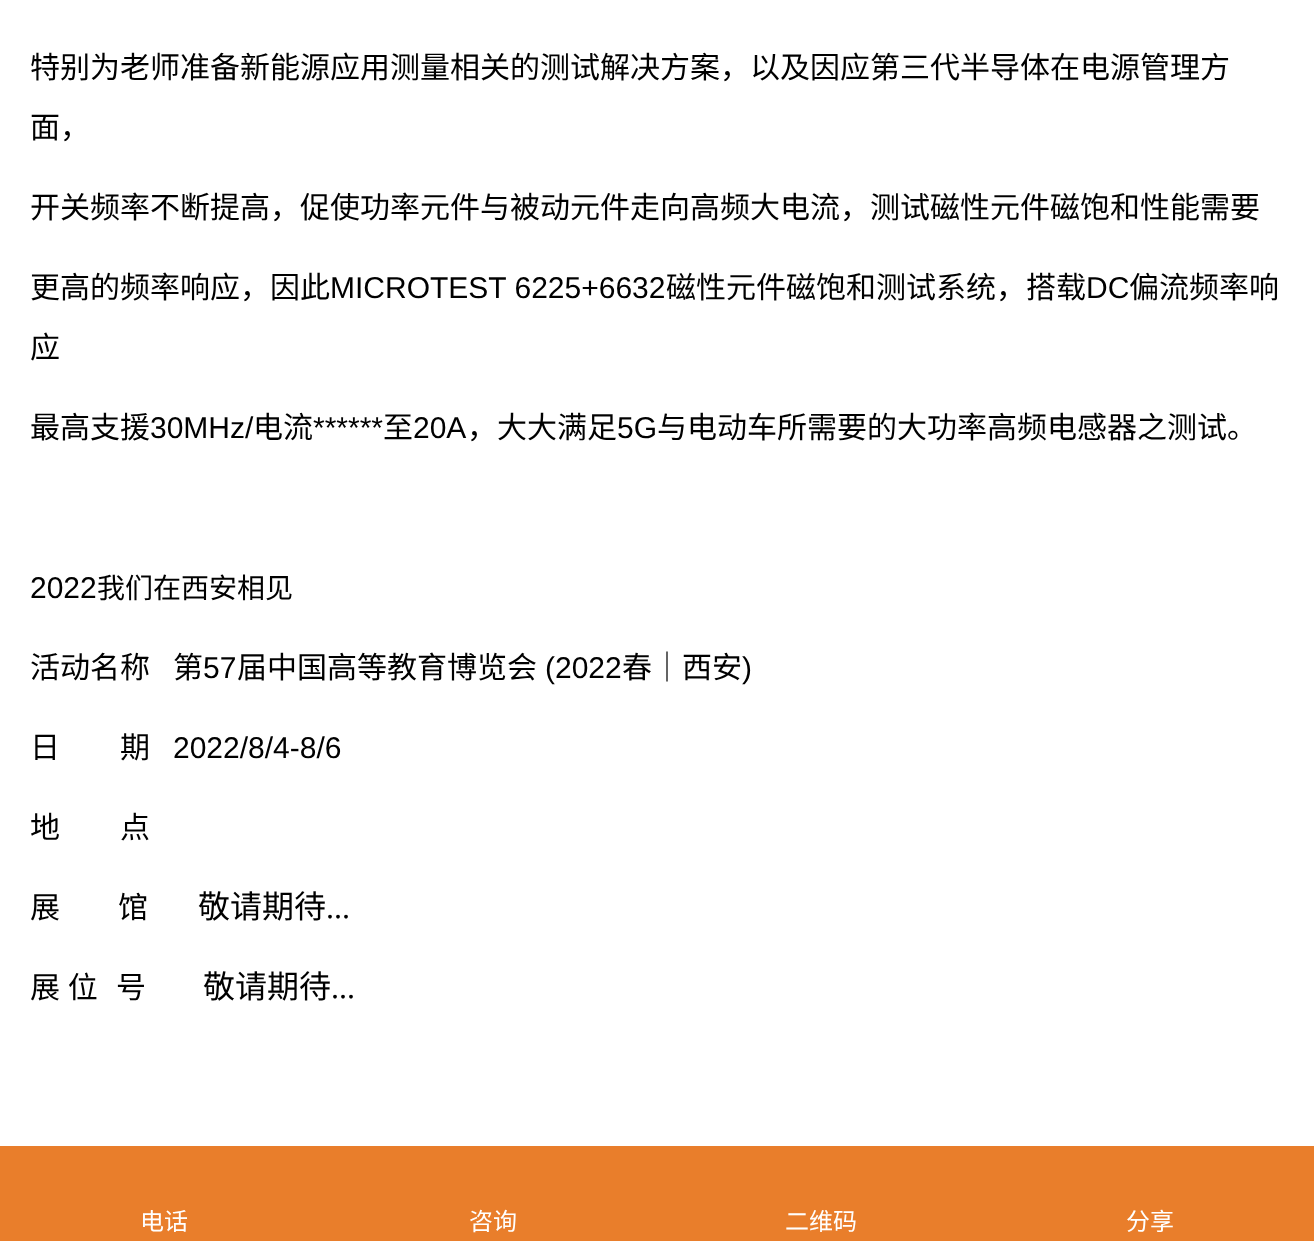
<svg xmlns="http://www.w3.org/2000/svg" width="1314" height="1241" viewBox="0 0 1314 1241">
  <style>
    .t1 { font: 30px Noto Sans CJK SC; fill: #000; }
    .t2 { font: 30px Liberation Sans; fill: #000; }
    .t3 { font: 28px Noto Sans CJK SC; fill: #000; }
    .t4 { font: 32px Noto Sans CJK SC; fill: #000; }
    .t5 { font: 32px Liberation Serif; fill: #000; }
    .t6 { font: 24px Noto Sans CJK SC; fill: #fff; }
  </style>
  <rect width="100%" height="100%" fill="#fff"/>
  <text x="30" y="78" class="t1">特别为老师准备新能源应用测量相关的测试解决方案，以及因应第三代半导体在电源管理方</text>
  <text x="30" y="138" class="t1">面，</text>
  <text x="30" y="218" class="t1">开关频率不断提高，促使功率元件与被动元件走向高频大电流，测试磁性元件磁饱和性能需要</text>
  <text x="30" y="298" class="t1">更高的频率响应，因此</text>
  <text x="330" y="298" class="t2">MICROTEST 6225+6632</text>
  <text x="666" y="298" class="t1">磁性元件磁饱和测试系统，搭载</text>
  <text x="1086" y="298" class="t2">DC</text>
  <text x="1129" y="298" class="t1">偏流频率响</text>
  <text x="30" y="358" class="t1">应</text>
  <text x="30" y="438" class="t1">最高支援</text>
  <text x="150" y="438" class="t2">30MHz/</text>
  <text x="253" y="438" class="t1">电流</text>
  <text x="313" y="438" class="t2">******</text>
  <text x="383" y="438" class="t1">至</text>
  <text x="413" y="438" class="t2">20A</text>
  <text x="467" y="438" class="t1">，大大满足</text>
  <text x="617" y="438" class="t2">5G</text>
  <text x="657" y="438" class="t1">与电动车所需要的大功率高频电感器之测试。</text>
  <text x="30" y="598" class="t2">2022</text>
  <text x="97" y="598" class="t3">我们在西安相见</text>
  <text x="30" y="678" class="t1">活动名称</text>
  <text x="173" y="678" class="t1">第</text>
  <text x="203" y="678" class="t2">57</text>
  <text x="237" y="678" class="t1">届中国高等教育博览会</text>
  <text x="545" y="678" class="t2">(2022</text>
  <text x="622" y="678" class="t1">春｜西安</text>
  <text x="742" y="678" class="t2">)</text>
  <text x="30" y="758" class="t1">日　　期</text>
  <text x="173" y="758" class="t2">2022/8/4-8/6</text>
  <text x="30" y="838" class="t1">地　　点</text>
  <text x="30" y="918" class="t1">展</text>
  <text x="118" y="918" class="t1">馆</text>
  <text x="198" y="918" class="t4">敬请期待</text>
  <text x="326" y="918" class="t5">...</text>
  <text x="30" y="998" word-spacing="1" class="t1">展 位</text>
  <text x="116" y="998" class="t1">号</text>
  <text x="203" y="998" class="t4">敬请期待</text>
  <text x="331" y="998" class="t5">...</text>
  <rect x="0" y="1146" width="1314" height="95" fill="#e97e2b"/>
  <text x="140" y="1230" class="t6">电话</text>
  <text x="469" y="1230" class="t6">咨询</text>
  <text x="785" y="1230" class="t6">二维码</text>
  <text x="1126" y="1230" class="t6">分享</text>
</svg>
